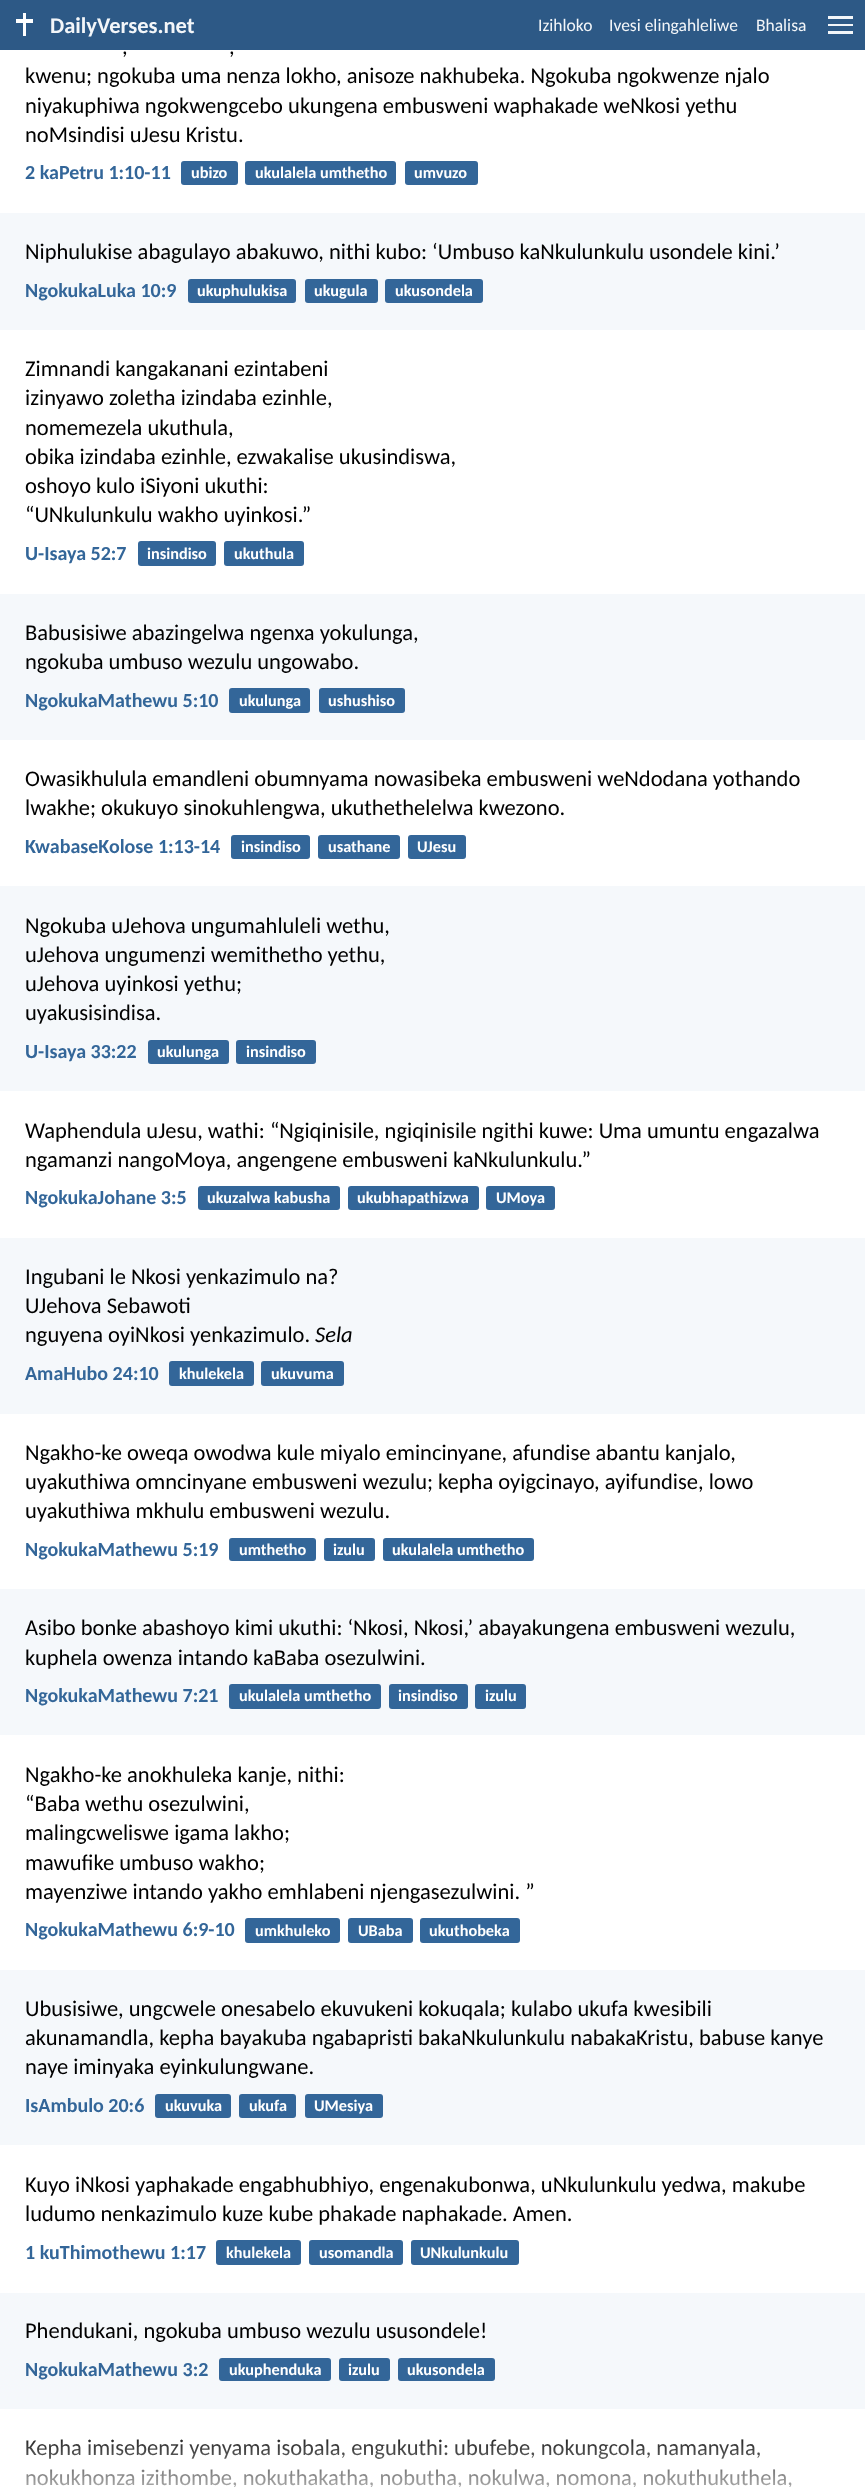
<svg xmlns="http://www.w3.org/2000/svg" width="865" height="2487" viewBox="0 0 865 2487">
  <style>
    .t1 { font: bold 22.5px Carlito; fill: #f3f6f9; }
    .t2 { font: 17.5px Carlito; fill: #f3f6f9; }
    .t3 { font: 22.5px Carlito; fill: #000; }
    .t4 { font: bold 20px Carlito; fill: #369; }
    .t5 { font: bold 16.25px Carlito; fill: #fff; }
    .t6 { font: italic 22.5px Carlito; fill: #000; }
  </style>
  <defs>
    <linearGradient id="g1" gradientUnits="userSpaceOnUse" x1="433" y1="2434" x2="433" y2="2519"><stop offset="0" stop-color="#fff" stop-opacity="0.1"/><stop offset="1" stop-color="#fff"/></linearGradient>
  </defs>
  <rect width="100%" height="100%" fill="#fff"/>
  <rect x="0" y="0" width="865" height="50" fill="#2d5986"/>
  <rect x="23" y="13" width="3" height="23" fill="#fff"/>
  <rect x="16" y="19" width="17" height="4" fill="#fff"/>
  <text x="50" y="33" class="t1">DailyVerses.net</text>
  <text x="538" y="31" class="t2">Izihloko</text>
  <text x="609" y="31" class="t2">Ivesi elingahleliwe</text>
  <text x="756" y="31" class="t2">Bhalisa</text>
  <rect x="828" y="16" width="25" height="3" fill="#f3f6f9"/>
  <rect x="828" y="24" width="25" height="2" fill="#f3f6f9"/>
  <rect x="828" y="31" width="25" height="3" fill="#f3f6f9"/>
  <text x="122" y="54" class="t3">,</text>
  <text x="229" y="54" class="t3">,</text>
  <text x="25" y="83" class="t3">kwenu; ngokuba uma nenza lokho, anisoze nakhubeka. Ngokuba ngokwenze njalo</text>
  <text x="25" y="113" class="t3">niyakuphiwa ngokwengcebo ukungena embusweni waphakade weNkosi yethu</text>
  <text x="25" y="142" class="t3">noMsindisi uJesu Kristu.</text>
  <text x="25" y="179" class="t4">2 kaPetru 1:10-11</text>
  <rect x="181" y="161" width="57" height="24" rx="3" fill="#369"/>
  <text x="191" y="178" class="t5">ubizo</text>
  <rect x="245" y="161" width="151" height="24" rx="3" fill="#369"/>
  <text x="255" y="178" class="t5">ukulalela umthetho</text>
  <rect x="405" y="161" width="73" height="24" rx="3" fill="#369"/>
  <text x="414" y="178" class="t5">umvuzo</text>
  <rect x="0" y="213" width="865" height="117" fill="#f5f8fb"/>
  <text x="25" y="259" class="t3">Niphulukise abagulayo abakuwo, nithi kubo: ‘Umbuso kaNkulunkulu usondele kini.’</text>
  <text x="25" y="297" class="t4">NgokukaLuka 10:9</text>
  <rect x="188" y="279" width="108" height="24" rx="3" fill="#369"/>
  <text x="197" y="296" class="t5">ukuphulukisa</text>
  <rect x="305" y="279" width="73" height="24" rx="3" fill="#369"/>
  <text x="314" y="296" class="t5">ukugula</text>
  <rect x="385" y="279" width="98" height="24" rx="3" fill="#369"/>
  <text x="395" y="296" class="t5">ukusondela</text>
  <text x="25" y="376" class="t3">Zimnandi kangakanani ezintabeni</text>
  <text x="25" y="405" class="t3">izinyawo zoletha izindaba ezinhle,</text>
  <text x="25" y="435" class="t3">nomemezela ukuthula,</text>
  <text x="25" y="464" class="t3">obika izindaba ezinhle, ezwakalise ukusindiswa,</text>
  <text x="25" y="493" class="t3">oshoyo kulo iSiyoni ukuthi:</text>
  <text x="25" y="522" class="t3">“UNkulunkulu wakho uyinkosi.”</text>
  <text x="25" y="560" class="t4">U-Isaya 52:7</text>
  <rect x="138" y="541" width="78" height="25" rx="3" fill="#369"/>
  <text x="147" y="559" class="t5">insindiso</text>
  <rect x="224" y="541" width="80" height="25" rx="3" fill="#369"/>
  <text x="234" y="559" class="t5">ukuthula</text>
  <rect x="0" y="594" width="865" height="146" fill="#f5f8fb"/>
  <text x="25" y="640" class="t3">Babusisiwe abazingelwa ngenxa yokulunga,</text>
  <text x="25" y="669" class="t3">ngokuba umbuso wezulu ungowabo.</text>
  <text x="25" y="707" class="t4">NgokukaMathewu 5:10</text>
  <rect x="229" y="688" width="81" height="25" rx="3" fill="#369"/>
  <text x="239" y="706" class="t5">ukulunga</text>
  <rect x="319" y="688" width="86" height="25" rx="3" fill="#369"/>
  <text x="328" y="706" class="t5">ushushiso</text>
  <text x="25" y="786" class="t3">Owasikhulula emandleni obumnyama nowasibeka embusweni weNdodana yothando</text>
  <text x="25" y="815" class="t3">lwakhe; okukuyo sinokuhlengwa, ukuthethelelwa kwezono.</text>
  <text x="25" y="853" class="t4">KwabaseKolose 1:13-14</text>
  <rect x="231" y="835" width="79" height="24" rx="3" fill="#369"/>
  <text x="241" y="852" class="t5">insindiso</text>
  <rect x="318" y="835" width="82" height="24" rx="3" fill="#369"/>
  <text x="328" y="852" class="t5">usathane</text>
  <rect x="408" y="835" width="58" height="24" rx="3" fill="#369"/>
  <text x="417" y="852" class="t5">UJesu</text>
  <rect x="0" y="886" width="865" height="205" fill="#f5f8fb"/>
  <text x="25" y="933" class="t3">Ngokuba uJehova ungumahluleli wethu,</text>
  <text x="25" y="962" class="t3">uJehova ungumenzi wemithetho yethu,</text>
  <text x="25" y="991" class="t3">uJehova uyinkosi yethu;</text>
  <text x="25" y="1020" class="t3">uyakusisindisa.</text>
  <text x="25" y="1058" class="t4">U-Isaya 33:22</text>
  <rect x="148" y="1040" width="81" height="24" rx="3" fill="#369"/>
  <text x="157" y="1057" class="t5">ukulunga</text>
  <rect x="236" y="1040" width="80" height="24" rx="3" fill="#369"/>
  <text x="246" y="1057" class="t5">insindiso</text>
  <text x="25" y="1138" class="t3">Waphendula uJesu, wathi: “Ngiqinisile, ngiqinisile ngithi kuwe: Uma umuntu engazalwa</text>
  <text x="25" y="1167" class="t3">ngamanzi nangoMoya, angengene embusweni kaNkulunkulu.”</text>
  <text x="25" y="1204" class="t4">NgokukaJohane 3:5</text>
  <rect x="198" y="1186" width="142" height="24" rx="3" fill="#369"/>
  <text x="207" y="1203" class="t5">ukuzalwa kabusha</text>
  <rect x="348" y="1186" width="131" height="24" rx="3" fill="#369"/>
  <text x="357" y="1203" class="t5">ukubhapathizwa</text>
  <rect x="486" y="1186" width="69" height="24" rx="3" fill="#369"/>
  <text x="496" y="1203" class="t5">UMoya</text>
  <rect x="0" y="1238" width="865" height="176" fill="#f5f8fb"/>
  <text x="25" y="1284" class="t3">Ingubani le Nkosi yenkazimulo na?</text>
  <text x="25" y="1313" class="t3">UJehova Sebawoti</text>
  <text x="25" y="1342" class="t3">nguyena oyiNkosi yenkazimulo.</text>
  <text x="315" y="1342" class="t6">Sela</text>
  <text x="25" y="1380" class="t4">AmaHubo 24:10</text>
  <rect x="169" y="1361" width="85" height="25" rx="3" fill="#369"/>
  <text x="179" y="1379" class="t5">khulekela</text>
  <rect x="261" y="1361" width="83" height="25" rx="3" fill="#369"/>
  <text x="271" y="1379" class="t5">ukuvuma</text>
  <text x="25" y="1460" class="t3">Ngakho-ke oweqa owodwa kule miyalo emincinyane, afundise abantu kanjalo,</text>
  <text x="25" y="1489" class="t3">uyakuthiwa omncinyane embusweni wezulu; kepha oyigcinayo, ayifundise, lowo</text>
  <text x="25" y="1518" class="t3">uyakuthiwa mkhulu embusweni wezulu.</text>
  <text x="25" y="1556" class="t4">NgokukaMathewu 5:19</text>
  <rect x="229" y="1538" width="87" height="23" rx="3" fill="#369"/>
  <text x="239" y="1555" class="t5">umthetho</text>
  <rect x="324" y="1538" width="51" height="23" rx="3" fill="#369"/>
  <text x="333" y="1555" class="t5">izulu</text>
  <rect x="383" y="1538" width="151" height="23" rx="3" fill="#369"/>
  <text x="392" y="1555" class="t5">ukulalela umthetho</text>
  <rect x="0" y="1589" width="865" height="146" fill="#f5f8fb"/>
  <text x="25" y="1635" class="t3">Asibo bonke abashoyo kimi ukuthi: ‘Nkosi, Nkosi,’ abayakungena embusweni wezulu,</text>
  <text x="25" y="1665" class="t3">kuphela owenza intando kaBaba osezulwini.</text>
  <text x="25" y="1702" class="t4">NgokukaMathewu 7:21</text>
  <rect x="229" y="1684" width="152" height="25" rx="3" fill="#369"/>
  <text x="239" y="1701" class="t5">ukulalela umthetho</text>
  <rect x="389" y="1684" width="79" height="25" rx="3" fill="#369"/>
  <text x="398" y="1701" class="t5">insindiso</text>
  <rect x="475" y="1684" width="51" height="25" rx="3" fill="#369"/>
  <text x="485" y="1701" class="t5">izulu</text>
  <text x="25" y="1782" class="t3">Ngakho-ke anokhuleka kanje, nithi:</text>
  <text x="25" y="1811" class="t3">“Baba wethu osezulwini,</text>
  <text x="25" y="1840" class="t3">malingcweliswe igama lakho;</text>
  <text x="25" y="1870" class="t3">mawufike umbuso wakho;</text>
  <text x="25" y="1899" class="t3">mayenziwe intando yakho emhlabeni njengasezulwini. ”</text>
  <text x="25" y="1936" class="t4">NgokukaMathewu 6:9-10</text>
  <rect x="245" y="1918" width="95" height="25" rx="3" fill="#369"/>
  <text x="255" y="1936" class="t5">umkhuleko</text>
  <rect x="348" y="1918" width="65" height="25" rx="3" fill="#369"/>
  <text x="358" y="1936" class="t5">UBaba</text>
  <rect x="420" y="1918" width="100" height="25" rx="3" fill="#369"/>
  <text x="429" y="1936" class="t5">ukuthobeka</text>
  <rect x="0" y="1970" width="865" height="175" fill="#f5f8fb"/>
  <text x="25" y="2016" class="t3">Ubusisiwe, ungcwele onesabelo ekuvukeni kokuqala; kulabo ukufa kwesibili</text>
  <text x="25" y="2045" class="t3">akunamandla, kepha bayakuba ngabapristi bakaNkulunkulu nabakaKristu, babuse kanye</text>
  <text x="25" y="2074" class="t3">naye iminyaka eyinkulungwane.</text>
  <text x="25" y="2112" class="t4">IsAmbulo 20:6</text>
  <rect x="155" y="2094" width="76" height="24" rx="3" fill="#369"/>
  <text x="165" y="2111" class="t5">ukuvuka</text>
  <rect x="239" y="2094" width="57" height="24" rx="3" fill="#369"/>
  <text x="249" y="2111" class="t5">ukufa</text>
  <rect x="305" y="2094" width="78" height="24" rx="3" fill="#369"/>
  <text x="314" y="2111" class="t5">UMesiya</text>
  <text x="25" y="2192" class="t3">Kuyo iNkosi yaphakade engabhubhiyo, engenakubonwa, uNkulunkulu yedwa, makube</text>
  <text x="25" y="2221" class="t3">ludumo nenkazimulo kuze kube phakade naphakade. Amen.</text>
  <text x="25" y="2259" class="t4">1 kuThimothewu 1:17</text>
  <rect x="216" y="2240" width="85" height="25" rx="3" fill="#369"/>
  <text x="226" y="2258" class="t5">khulekela</text>
  <rect x="309" y="2240" width="94" height="25" rx="3" fill="#369"/>
  <text x="319" y="2258" class="t5">usomandla</text>
  <rect x="411" y="2240" width="108" height="25" rx="3" fill="#369"/>
  <text x="420" y="2258" class="t5">UNkulunkulu</text>
  <rect x="0" y="2293" width="865" height="116" fill="#f5f8fb"/>
  <text x="25" y="2338" class="t3">Phendukani, ngokuba umbuso wezulu ususondele!</text>
  <text x="25" y="2376" class="t4">NgokukaMathewu 3:2</text>
  <rect x="219" y="2358" width="112" height="23" rx="3" fill="#369"/>
  <text x="229" y="2375" class="t5">ukuphenduka</text>
  <rect x="339" y="2358" width="51" height="23" rx="3" fill="#369"/>
  <text x="348" y="2375" class="t5">izulu</text>
  <rect x="398" y="2358" width="97" height="23" rx="3" fill="#369"/>
  <text x="407" y="2375" class="t5">ukusondela</text>
  <text x="25" y="2455" class="t3">Kepha imisebenzi yenyama isobala, engukuthi: ubufebe, nokungcola, namanyala,</text>
  <text x="25" y="2485" class="t3">nokukhonza izithombe, nokuthakatha, nobutha, nokulwa, nomona, nokuthukuthela,</text>
  <rect x="26" y="2439" width="766" height="48" fill="url(#g1)"/>
</svg>
